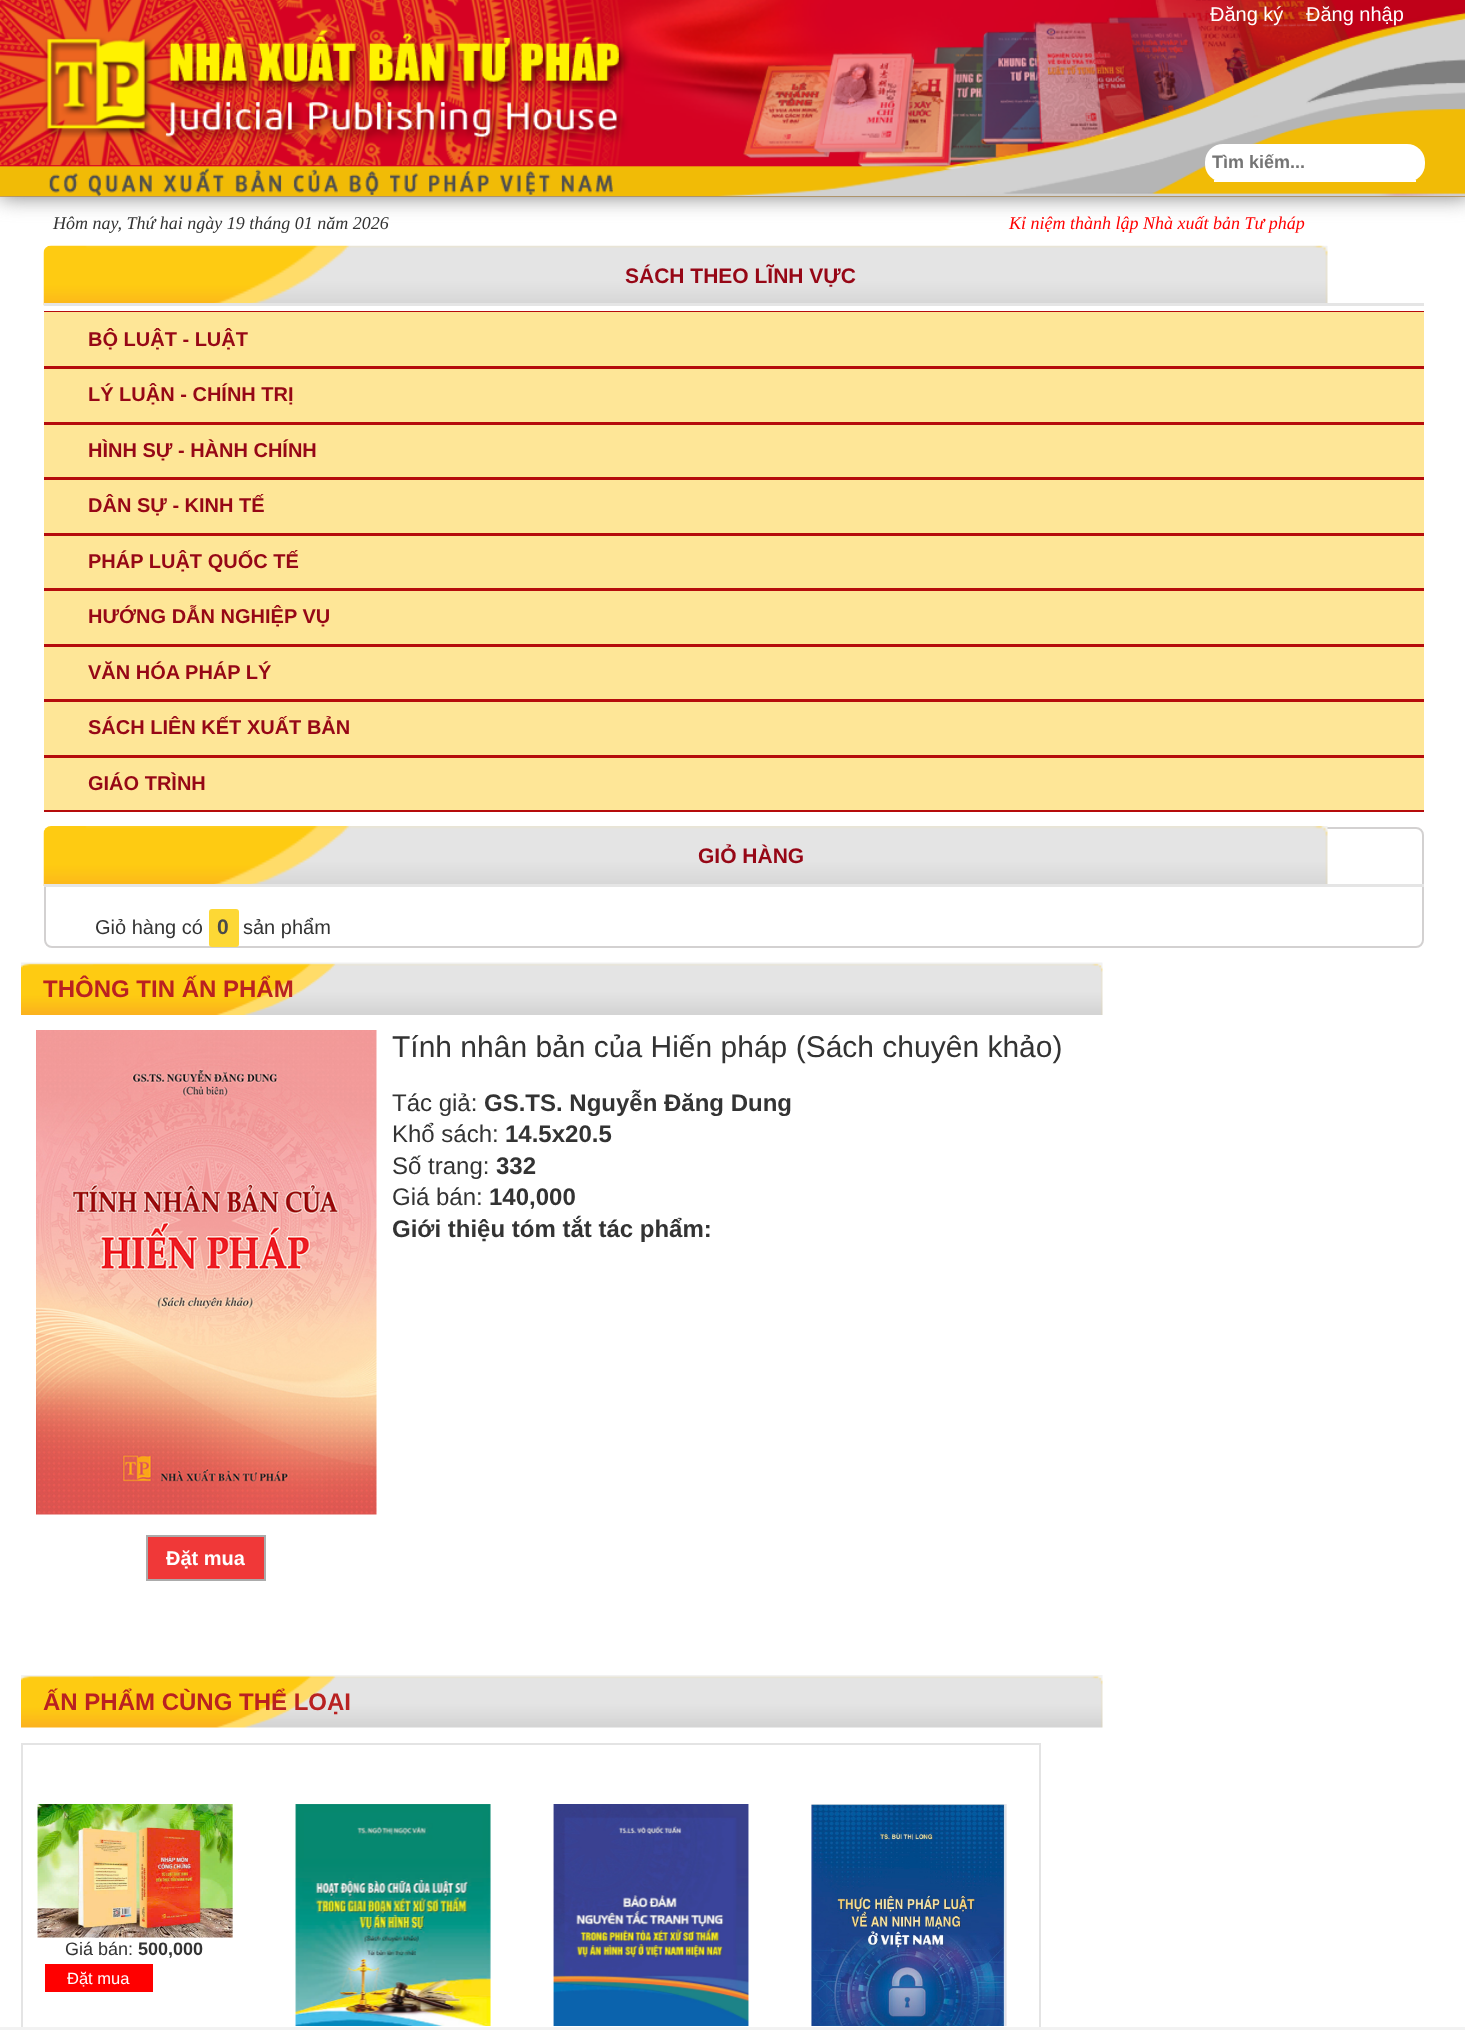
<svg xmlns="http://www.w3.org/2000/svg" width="1465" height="2030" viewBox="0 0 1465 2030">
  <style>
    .t1 { font: 20px Liberation Sans; fill: #fff; }
    .t2 { font: bold 18px Liberation Sans; fill: #757575; }
    .t3 { font: italic 18px Liberation Serif; fill: #333; }
    .t4 { font: italic 18px Liberation Serif; fill: #f00; }
    .t5 { font: bold 21px Liberation Sans; fill: #960716; }
    .t6 { font: bold 20px Liberation Sans; fill: #960716; }
    .t7 { font: 20px Liberation Sans; fill: #333; }
    .t8 { font: bold 21px Liberation Sans; fill: #4a4a4a; }
    .t9 { font: bold 24px Liberation Sans; fill: #b92121; }
    .t10 { font: 30px Liberation Sans; fill: #333; }
    .t11 { font: 24px Liberation Sans; fill: #333; }
    .t12 { font: bold 24px Liberation Sans; fill: #333; }
    .t13 { font: bold 20px Liberation Sans; fill: #fff; }
    .t14 { font: 18px Liberation Sans; fill: #333; }
    .t15 { font: bold 18px Liberation Sans; fill: #333; }
    .t16 { font: 16.5px Liberation Sans; fill: #fff; }
  </style>
  <defs>
    <clipPath id="clip1"><rect x="0" y="0" width="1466" height="2027"/></clipPath>
  </defs>
  <rect width="100%" height="100%" fill="#f2f2f2"/>
  <image x="0" y="196" width="1465" height="1" href="images/1.png"/>
  <rect x="-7" y="-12" width="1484" height="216" fill="#dfa952" filter="blur(4px)"/>
  <rect x="0" y="197" width="1465" height="4" fill="#fff"/>
  <rect x="0" y="201" width="1465" height="45" fill="#fff"/>
  <rect x="0" y="-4" width="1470" height="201" fill="#808080" filter="blur(10.5px)"/>
  <image x="0" y="0" width="1465" height="196" href="images/2.png"/>
  <text x="1210" y="21" class="t1">Đăng ký</text>
  <text x="1306" y="21" class="t1">Đăng nhập</text>
  <rect x="1205" y="144" width="220" height="38" rx="18" fill="#fff"/>
  <rect x="1214" y="180" width="202" height="2" fill="#fff"/>
  <text x="1212" y="168" class="t2">Tìm kiếm...</text>
  <text x="53" y="229" class="t3">Hôm nay, Thứ hai ngày 19 tháng 01 năm 2026</text>
  <text x="1009" y="229" class="t4">Kỉ niệm thành lập Nhà xuất bản Tư pháp</text>
  <rect x="0" y="246" width="1465" height="1781" fill="#fff"/>
  <image x="43" y="245" width="1285" height="61" href="images/3.png"/>
  <text x="625" y="283" class="t5">SÁCH THEO LĨNH VỰC</text>
  <rect x="44" y="303" width="1380" height="3" fill="#e5e5e5"/>
  <rect x="44" y="311" width="1380" height="1" fill="#b50c0c"/>
  <rect x="44" y="366" width="1380" height="3" fill="#b50c0c"/>
  <rect x="44" y="312" width="1380" height="54" fill="#fee697"/>
  <text x="88" y="346" class="t6">BỘ LUẬT - LUẬT</text>
  <rect x="44" y="422" width="1380" height="3" fill="#b50c0c"/>
  <rect x="44" y="369" width="1380" height="53" fill="#fee697"/>
  <text x="88" y="401" class="t6">LÝ LUẬN - CHÍNH TRỊ</text>
  <rect x="44" y="425" width="1380" height="52" fill="#fee697"/>
  <rect x="44" y="477" width="1380" height="3" fill="#b50c0c"/>
  <text x="88" y="457" class="t6">HÌNH SỰ - HÀNH CHÍNH</text>
  <rect x="44" y="533" width="1380" height="3" fill="#b50c0c"/>
  <rect x="44" y="480" width="1380" height="53" fill="#fee697"/>
  <text x="88" y="512" class="t6">DÂN SỰ - KINH TẾ</text>
  <rect x="44" y="536" width="1380" height="52" fill="#fee697"/>
  <rect x="44" y="588" width="1380" height="3" fill="#b50c0c"/>
  <text x="88" y="568" class="t6">PHÁP LUẬT QUỐC TẾ</text>
  <rect x="44" y="644" width="1380" height="3" fill="#b50c0c"/>
  <rect x="44" y="591" width="1380" height="53" fill="#fee697"/>
  <text x="88" y="623" class="t6">HƯỚNG DẪN NGHIỆP VỤ</text>
  <rect x="44" y="647" width="1380" height="52" fill="#fee697"/>
  <rect x="44" y="699" width="1380" height="3" fill="#b50c0c"/>
  <text x="88" y="679" class="t6">VĂN HÓA PHÁP LÝ</text>
  <rect x="44" y="755" width="1380" height="3" fill="#b50c0c"/>
  <rect x="44" y="702" width="1380" height="53" fill="#fee697"/>
  <text x="88" y="734" class="t6">SÁCH LIÊN KẾT XUẤT BẢN</text>
  <rect x="44" y="758" width="1380" height="52" fill="#fee697"/>
  <rect x="44" y="810" width="1380" height="2" fill="#b50c0c"/>
  <text x="88" y="790" class="t6">GIÁO TRÌNH</text>
  <rect x="45" y="828" width="1378" height="119" rx="7" fill="none" stroke="#d3d1d1" stroke-width="2"/>
  <image x="43" y="826" width="1285" height="60" href="images/4.png"/>
  <text x="698" y="863" class="t5">GIỎ HÀNG</text>
  <rect x="44" y="884" width="1380" height="3" fill="#e5e5e5"/>
  <text x="95" y="934" class="t7">Giỏ hàng có</text>
  <rect x="209" y="909" width="30" height="38" rx="3" fill="#fdd835"/>
  <text x="217" y="934" class="t8">0</text>
  <text x="243" y="934" class="t7">sản phẩm</text>
  <image x="21" y="962" width="1082" height="53" href="images/5.png"/>
  <text x="43" y="997" class="t9">THÔNG TIN ẤN PHẨM</text>
  <text x="392" y="1057" class="t10">Tính nhân bản của Hiến pháp (Sách chuyên khảo)</text>
  <text x="392" y="1111" class="t11">Tác giả:</text>
  <text x="484" y="1111" class="t12">GS.TS. Nguyễn Đăng Dung</text>
  <text x="392" y="1142" class="t11">Khổ sách:</text>
  <text x="505" y="1142" class="t12">14.5x20.5</text>
  <text x="392" y="1174" class="t11">Số trang:</text>
  <text x="496" y="1174" class="t12">332</text>
  <text x="392" y="1205" class="t11">Giá bán:</text>
  <text x="489" y="1205" class="t12">140,000</text>
  <text x="392" y="1237" class="t12">Giới thiệu tóm tắt tác phẩm:</text>
  <image x="36" y="1030" width="341" height="485" href="images/6.png"/>
  <rect x="147" y="1536" width="118" height="44" fill="#f03838" stroke="#ababab" stroke-width="2"/>
  <text x="166" y="1565" class="t13">Đặt mua</text>
  <image x="21" y="1675" width="1082" height="53" href="images/7.png"/>
  <text x="43" y="1710" class="t9">ẤN PHẨM CÙNG THỂ LOẠI</text>
  <g clip-path="url(#clip1)">
    <rect x="22" y="1744" width="1018" height="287" fill="none" stroke="#e4e4e4" stroke-width="2"/>
  </g>
  <image x="37" y="1804" width="196" height="134" href="images/8.png"/>
  <text x="65" y="1955" class="t14">Giá bán:</text>
  <text x="138" y="1955" class="t15">500,000</text>
  <rect x="45" y="1964" width="108" height="28" fill="#f00"/>
  <text x="67" y="1984" class="t16">Đặt mua</text>
  <image x="295" y="1804" width="196" height="222" href="images/9.png"/>
  <image x="553" y="1804" width="196" height="222" href="images/10.png"/>
  <image x="811" y="1804" width="196" height="222" href="images/11.png"/>
</svg>
